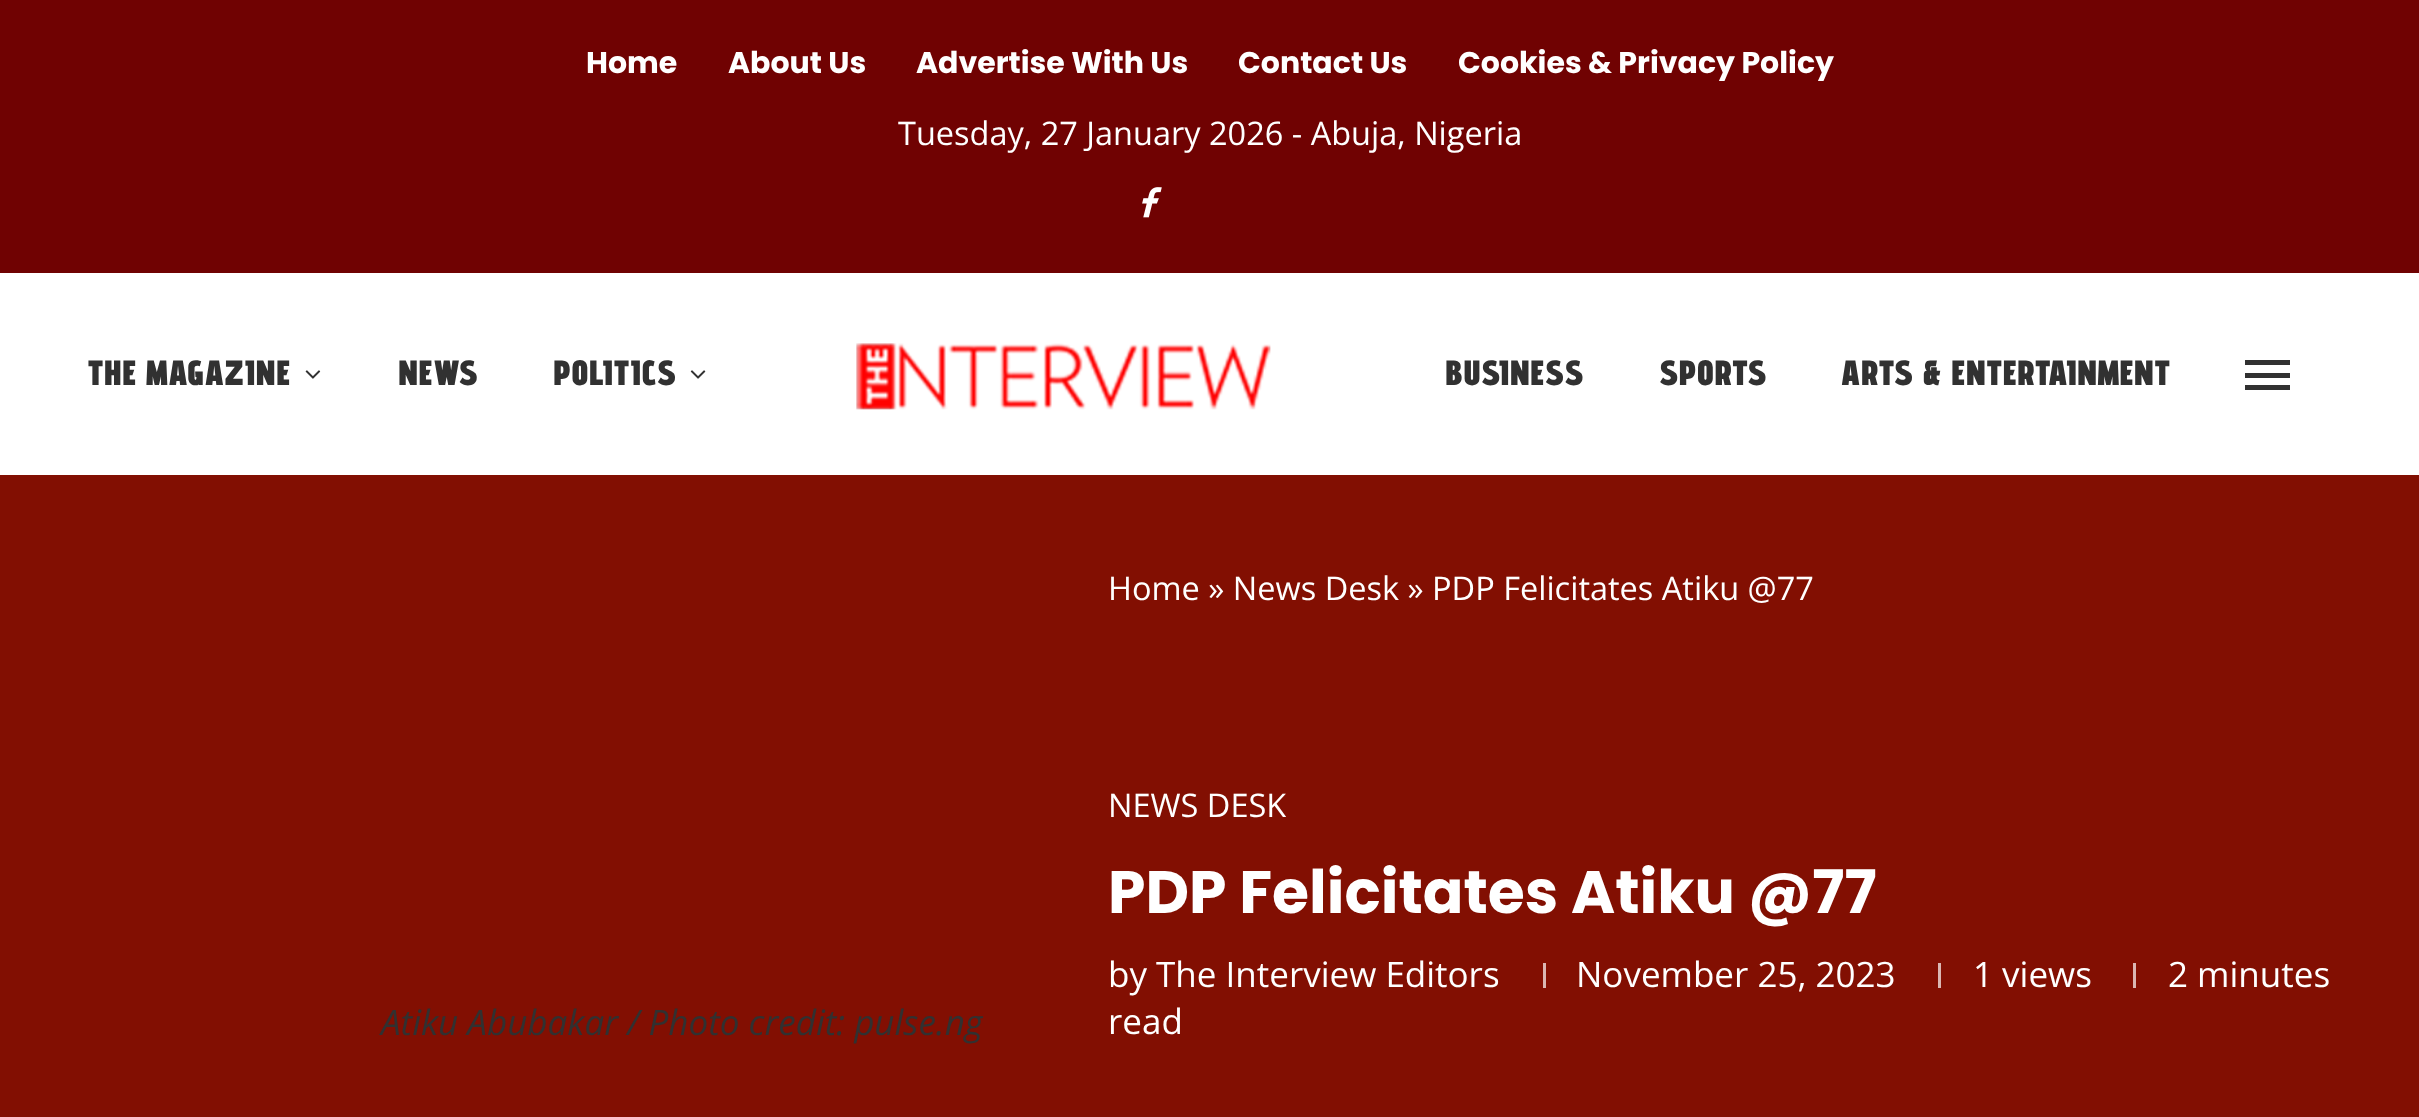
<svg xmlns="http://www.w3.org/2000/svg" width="2419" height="1117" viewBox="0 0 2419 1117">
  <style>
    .t1 { font: bold 30px Poppins; fill: #fff; }
    .t2 { font: 32.5px Open Sans; fill: #fff; }
    .t3 { font: 900 35px Advent Pro; fill: #313131; }
    .t4 { font: italic 35px Open Sans; fill: #313131; }
    .t5 { font: bold 60px Poppins; fill: #fff; }
    .t6 { font: 35px Open Sans; fill: #fff; }
  </style>
  <rect width="100%" height="100%" fill="#fff"/>
  <rect x="0" y="0" width="2419" height="273" fill="#700202"/>
  <text x="586" y="73" class="t1">Home</text>
  <text x="728" y="73" class="t1">About Us</text>
  <text x="916" y="73" class="t1">Advertise With Us</text>
  <text x="1238" y="73" class="t1">Contact Us</text>
  <text x="1458" y="73" class="t1">Cookies &amp; Privacy Policy</text>
  <text x="898" y="145" class="t2">Tuesday, 27 January 2026 - Abuja, Nigeria</text>
  <image x="1142" y="187" width="20" height="31" href="images/1.png"/>
  <text x="88" y="385" class="t3">THE MAGAZINE</text>
  <image x="305" y="370" width="16" height="9" href="images/2.png"/>
  <text x="398" y="385" class="t3">NEWS</text>
  <text x="553" y="385" class="t3">POLITICS</text>
  <image x="690" y="370" width="16" height="9" href="images/3.png"/>
  <image x="856" y="343" width="415" height="67" href="images/4.png"/>
  <text x="1445" y="385" class="t3">BUSINESS</text>
  <text x="1659" y="385" class="t3">SPORTS</text>
  <text x="1841" y="385" class="t3">ARTS &amp; ENTERTAINMENT</text>
  <rect x="2245" y="360" width="45" height="5" fill="#313131"/>
  <rect x="2245" y="385" width="45" height="5" fill="#313131"/>
  <rect x="2245" y="373" width="45" height="5" fill="#313131"/>
  <rect x="0" y="475" width="2419" height="642" fill="#820f02"/>
  <text x="381" y="1035" class="t4">Atiku Abubakar / Photo credit: pulse.ng</text>
  <rect x="983" y="1016" width="1" height="3" fill="#820f02"/>
  <text x="1108" y="600" class="t2">Home » News Desk » PDP Felicitates Atiku @77</text>
  <text x="1108" y="817" class="t2">NEWS DESK</text>
  <text x="1108" y="913" class="t5">PDP Felicitates Atiku @77</text>
  <text x="1108" y="987" class="t6">by The Interview Editors</text>
  <rect x="1543" y="963" width="3" height="25" fill="#dab7b3"/>
  <text x="1576" y="987" class="t6">November 25, 2023</text>
  <rect x="2133" y="963" width="3" height="25" fill="#dab7b3"/>
  <text x="2168" y="987" class="t6">2 minutes</text>
  <text x="1108" y="1034" class="t6">read</text>
  <rect x="1938" y="963" width="3" height="25" fill="#dab7b3"/>
  <text x="1973" y="987" class="t6">1 views</text>
</svg>
